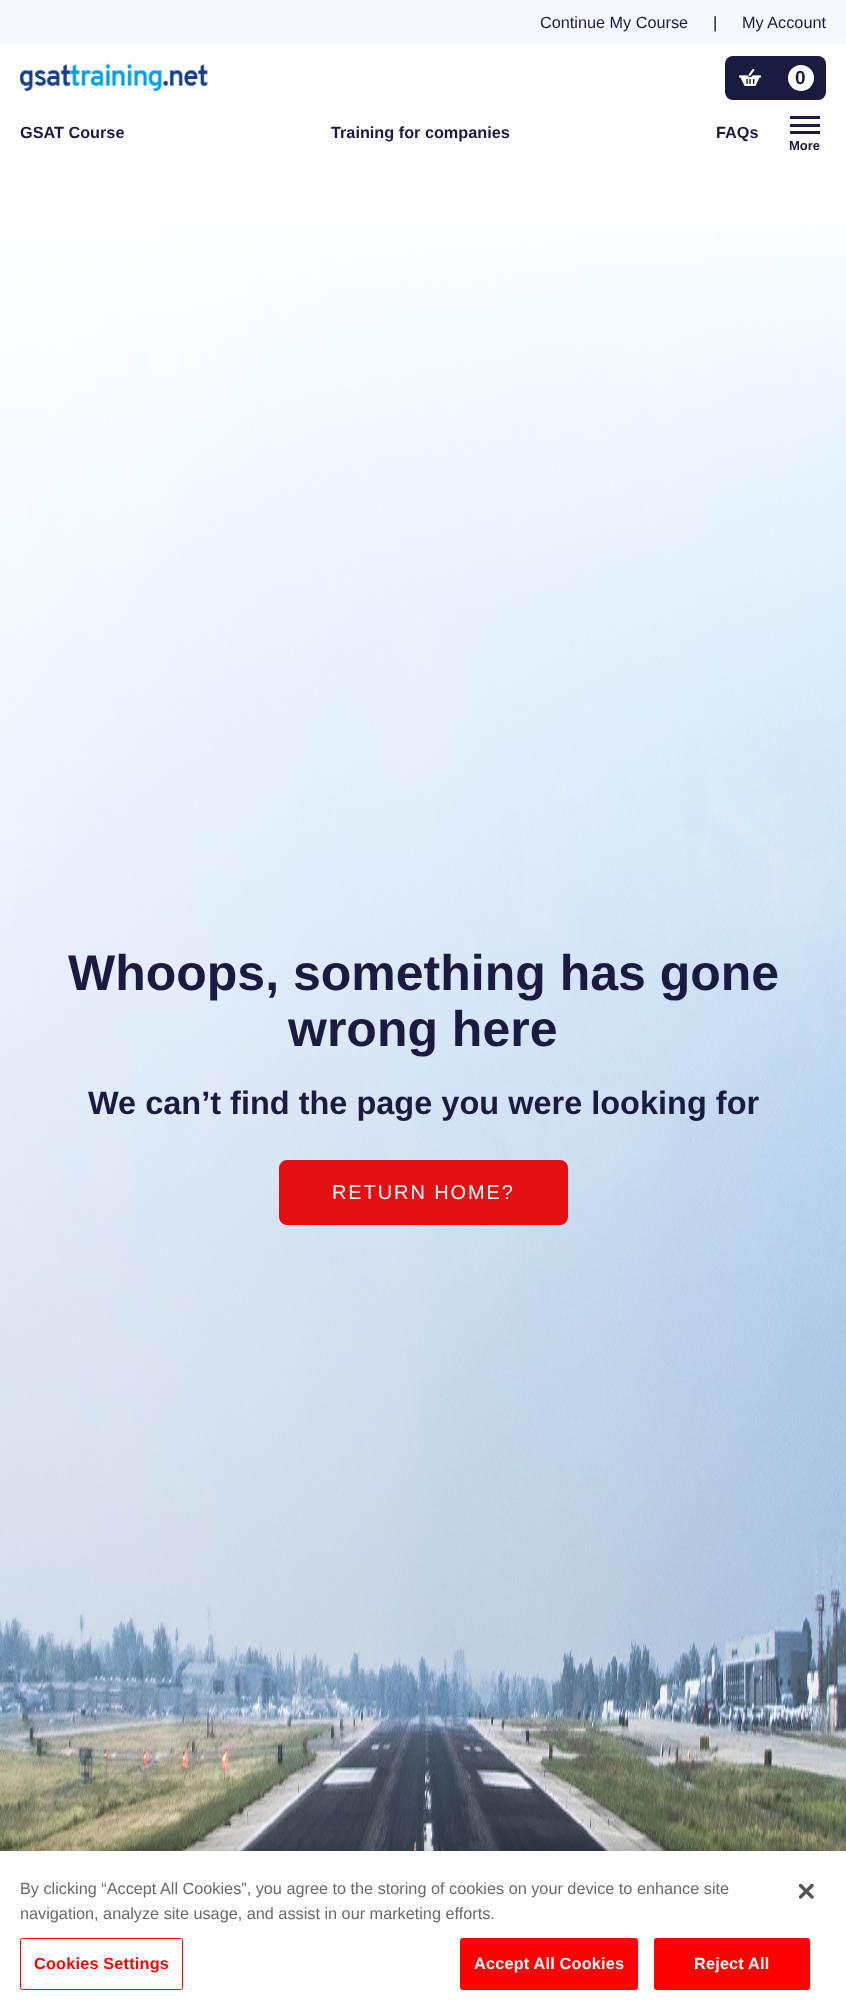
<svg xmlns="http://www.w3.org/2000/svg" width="846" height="2015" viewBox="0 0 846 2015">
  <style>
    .t1 { font: 16.25px Liberation Sans; fill: #1b1a40; }
    .t2 { font: 16.25px Liberation Sans; fill: #09030e; }
    .t3 { font: bold 19px Liberation Sans; fill: #1b1a40; }
    .t4 { font: bold 16.25px Liberation Sans; fill: #1b1a40; }
    .t5 { font: bold 13px Liberation Sans; fill: #1b1a40; }
    .t6 { font: bold 50px Liberation Sans; fill: #1b1a40; }
    .t7 { font: bold 32.5px Liberation Sans; fill: #1b1a40; }
    .t8 { font: 20px Liberation Sans; letter-spacing: 1.9px; fill: #fff; }
    .t9 { font: 16.25px Liberation Sans; fill: #696969; }
    .t10 { font: bold 16.25px Liberation Sans; letter-spacing: 0.2px; fill: #f00; }
    .t11 { font: bold 16.25px Liberation Sans; letter-spacing: 0.2px; fill: #fff; }
  </style>
  <rect width="100%" height="100%" fill="#fff"/>
  <rect x="0" y="0" width="846" height="44" fill="#f5f8fd"/>
  <text x="540" y="28" class="t1">Continue My Course</text>
  <text x="713" y="28" class="t2">|</text>
  <text x="742" y="28" class="t1">My Account</text>
  <image x="20" y="63" width="188" height="29" href="images/1.png"/>
  <rect x="725" y="56" width="101" height="44" rx="8" fill="#1b1a40"/>
  <image x="739" y="69" width="22" height="17" href="images/2.png"/>
  <circle cx="801" cy="78" r="13" fill="#fff"/>
  <text x="795" y="84" class="t3">0</text>
  <text x="20" y="138" class="t4">GSAT Course</text>
  <text x="331" y="138" class="t4">Training for companies</text>
  <text x="716" y="138" class="t4">FAQs</text>
  <rect x="790" y="124" width="30" height="3" fill="#1b1a40"/>
  <rect x="790" y="116" width="30" height="3" fill="#1b1a40"/>
  <rect x="790" y="131" width="30" height="3" fill="#1b1a40"/>
  <text x="789" y="150" class="t5">More</text>
  <image x="0" y="223" width="846" height="1628" href="images/3.png"/>
  <text x="68" y="990" class="t6">Whoops, something has gone</text>
  <text x="288" y="1046" class="t6">wrong here</text>
  <text x="88" y="1114" class="t7">We can’t find the page you were looking for</text>
  <rect x="280.5" y="1161.5" width="286" height="62" rx="6.5" fill="#e30f13" stroke="#e30f13" stroke-width="3"/>
  <text x="332" y="1199" class="t8">RETURN HOME?</text>
  <rect x="0" y="1851" width="846" height="164" fill="#00000033" filter="blur(11px)"/>
  <rect x="0" y="1851" width="846" height="164" fill="#fff"/>
  <text x="20" y="1894" class="t9">By clicking “Accept All Cookies”, you agree to the storing of cookies on your device to enhance site</text>
  <text x="20" y="1919" class="t9">navigation, analyze site usage, and assist in our marketing efforts.</text>
  <rect x="20.5" y="1938.5" width="162" height="51" rx="2" fill="none" stroke="#f00"/>
  <text x="34" y="1969" class="t10">Cookies Settings</text>
  <rect x="460.5" y="1938.5" width="177" height="51" rx="2" fill="#f00" stroke="#f00"/>
  <text x="474" y="1969" class="t11">Accept All Cookies</text>
  <rect x="654.5" y="1938.5" width="155" height="51" rx="2" fill="#f00" stroke="#f00"/>
  <text x="694" y="1969" class="t11">Reject All</text>
  <image x="799" y="1884" width="15" height="15" href="images/4.png"/>
</svg>
